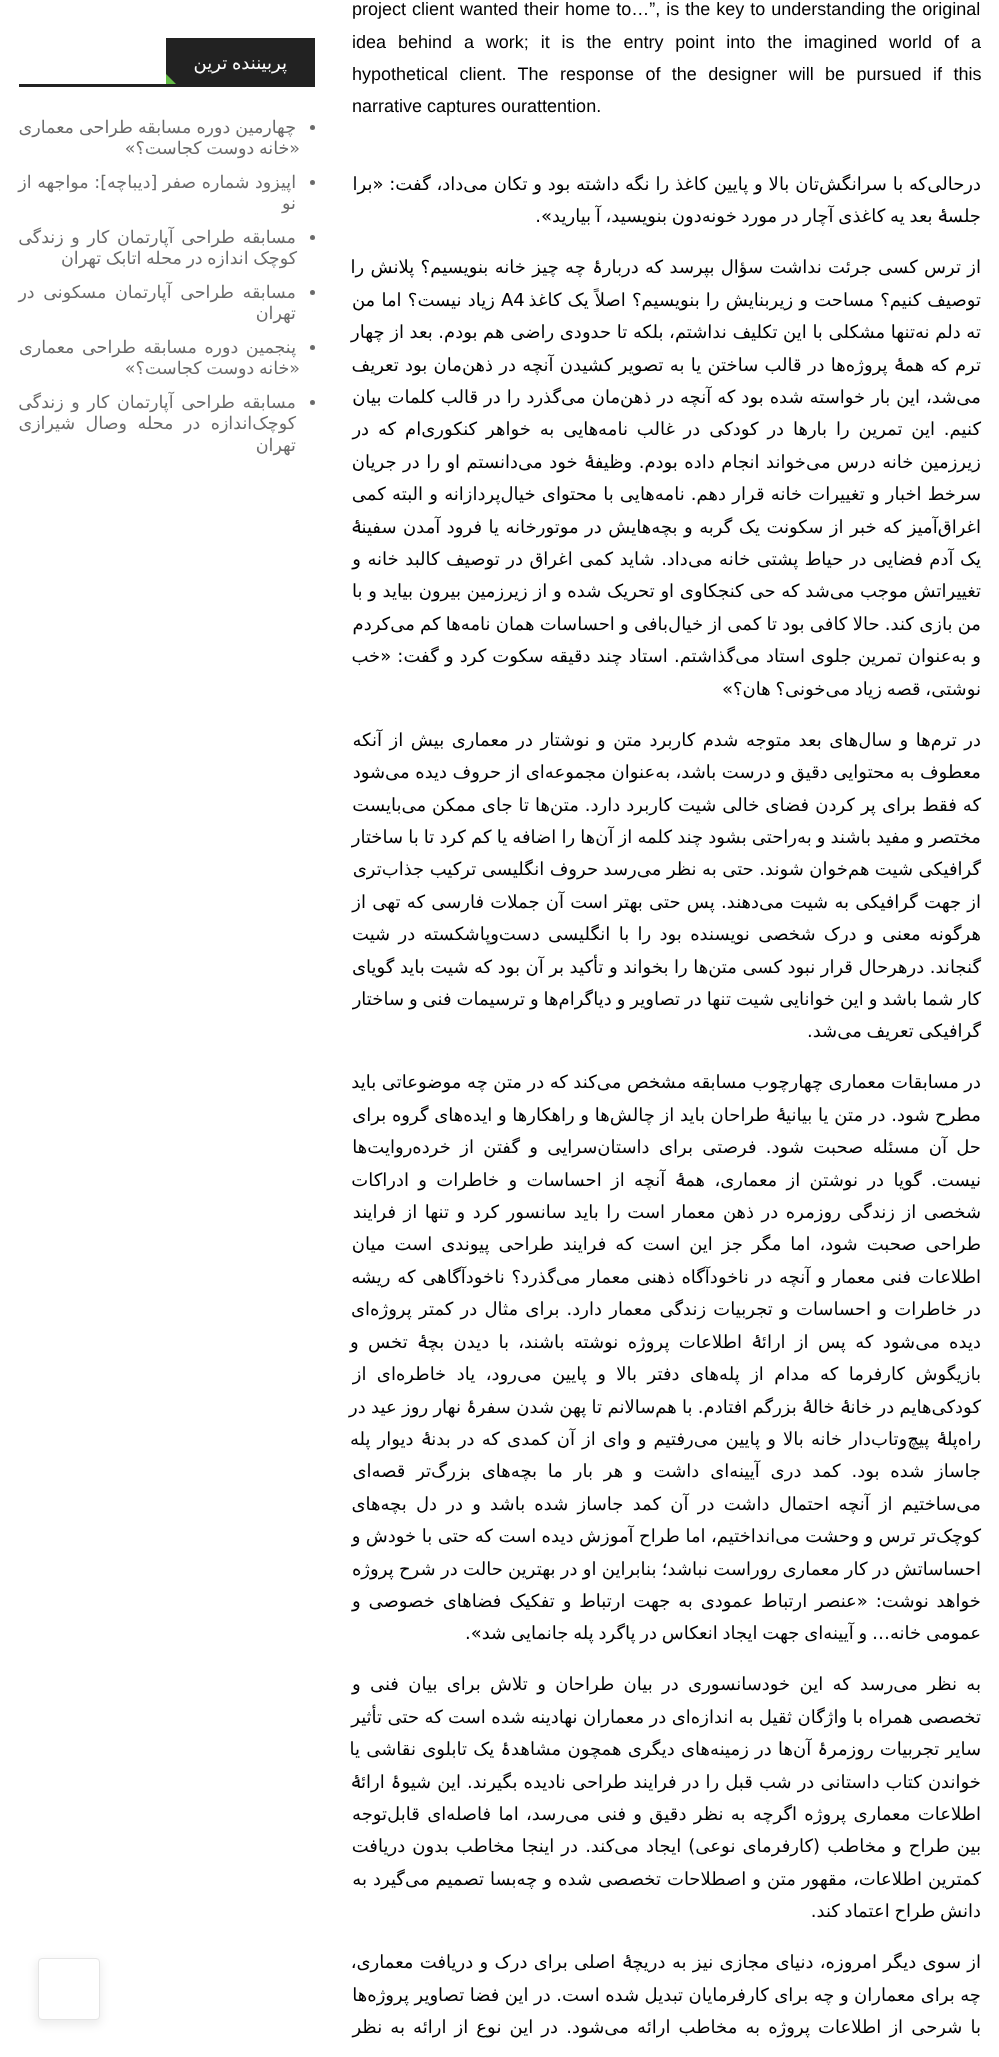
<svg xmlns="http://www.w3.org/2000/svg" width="999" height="2057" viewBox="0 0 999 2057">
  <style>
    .t1 { font: 18px Liberation Sans; fill: #000; }
    .t2 { font: 18px DejaVu Sans; direction: rtl; fill: #000; }
    .t3 { font: 18px DejaVu Sans; fill: #000; }
    .t4 { font: 18px DejaVu Sans; direction: rtl; fill: #fff; }
    .t5 { font: 17.5px DejaVu Sans; direction: rtl; fill: #6b6b6b; }
  </style>
  <rect width="100%" height="100%" fill="#fff"/>
  <text x="352" y="15" word-spacing="1" class="t1">project client wanted their home to…”, is the key to understanding the original</text>
  <text x="352" y="48" word-spacing="6.9" class="t1">idea behind a work; it is the entry point into the imagined world of a</text>
  <text x="352" y="80" word-spacing="6.4" class="t1">hypothetical client. The response of the designer will be pursued if this</text>
  <text x="352" y="112" class="t1">narrative captures ourattention.</text>
  <text x="981" y="190" word-spacing="0.1" class="t2">درحالی‌که با سرانگش‌تان بالا و پایین کاغذ را نگه داشته بود و تکان می‌داد، ‌گفت: «برا</text>
  <text x="981" y="222" word-spacing="-1" class="t2">جلسۀ بعد یه کاغذی آچار در مورد خونه‌دون بنویسید، آ بیارید».</text>
  <text x="981" y="273" word-spacing="0.6" class="t2">از ترس کسی جرئت نداشت سؤال بپرسد که دربارۀ چه چیز خانه بنویسیم؟ پلانش را</text>
  <text x="981" y="306" word-spacing="0.4" class="t2">توصیف کنیم؟ مساحت و زیربنایش را بنویسیم؟ اصلاً یک کاغذ</text>
  <text x="501" y="306" class="t3">A4</text>
  <text x="495" y="306" word-spacing="0.5" class="t2">زیاد نیست؟ اما من</text>
  <text x="981" y="338" word-spacing="-0.1" class="t2">ته دلم نه‌تنها مشکلی با این تکلیف نداشتم، بلکه تا حدودی راضی هم بودم. بعد از چهار</text>
  <text x="981" y="371" word-spacing="0.5" class="t2">ترم که همۀ پروژه‌ها در قالب ساختن یا به تصویر کشیدن آنچه در ذهن‌مان بود تعریف</text>
  <text x="981" y="403" word-spacing="0.25" class="t2">می‌شد، این بار خواسته شده بود که آنچه در ذهن‌مان می‌گذرد را در قالب کلمات بیان</text>
  <text x="981" y="435" word-spacing="3.1" class="t2">کنیم. این تمرین را بارها در کودکی در غالب نامه‌هایی به خواهر کنکوری‌ام که در</text>
  <text x="981" y="468" word-spacing="0.75" class="t2">زیرزمین خانه درس می‌خواند انجام داده بودم. وظیفۀ خود می‌دانستم او را در جریان</text>
  <text x="981" y="500" word-spacing="0.5" class="t2">سرخط اخبار و تغییرات خانه قرار دهم. نامه‌هایی با محتوای خیال‌پردازانه و البته کمی</text>
  <text x="981" y="533" word-spacing="0.75" class="t2">اغراق‌آمیز که خبر از سکونت یک گربه و بچه‌هایش در موتورخانه یا فرود آمدن سفینۀ</text>
  <text x="981" y="565" word-spacing="0.75" class="t2">یک آدم فضایی در حیاط پشتی خانه می‌داد. شاید کمی اغراق در توصیف کالبد خانه و</text>
  <text x="981" y="597" class="t2">تغییراتش موجب می‌شد که حی کنجکاوی او تحریک شده و از زیرزمین بیرون بیاید و با</text>
  <text x="981" y="630" word-spacing="-0.5" class="t2">من بازی کند. حالا کافی بود تا کمی از خیال‌بافی و احساسات همان نامه‌ها کم می‌کردم</text>
  <text x="981" y="662" word-spacing="0.4" class="t2">و به‌عنوان تمرین جلوی استاد می‌گذاشتم. استاد چند دقیقه سکوت کرد و گفت: «خب</text>
  <text x="981" y="695" word-spacing="-1" class="t2">نوشتی، قصه زیاد می‌خونی؟ هان؟»</text>
  <text x="981" y="746" word-spacing="1.8" class="t2">در ترم‌ها و سال‌های بعد متوجه شدم کاربرد متن و نوشتار در معماری بیش از آنکه</text>
  <text x="981" y="778" word-spacing="-0.25" class="t2">معطوف به محتوایی دقیق و درست باشد، به‌عنوان مجموعه‌ای از حروف دیده می‌شود</text>
  <text x="981" y="811" word-spacing="0.3" class="t2">که فقط برای پر کردن فضای خالی شیت کاربرد دارد. متن‌ها تا جای ممکن می‌بایست</text>
  <text x="981" y="843" word-spacing="-0.6" class="t2">مختصر و مفید باشند و به‌راحتی بشود چند کلمه‌ از آن‌ها را اضافه یا کم کرد تا با ساختار</text>
  <text x="981" y="875" word-spacing="-0.25" class="t2">گرافیکی شیت هم‌خوان شوند. حتی به نظر می‌رسد حروف انگلیسی ترکیب جذاب‌تری</text>
  <text x="981" y="908" word-spacing="0.5" class="t2">از جهت گرافیکی به شیت می‌دهند. پس حتی بهتر است آن جملات فارسی که تهی از</text>
  <text x="981" y="940" word-spacing="2.6" class="t2">هرگونه معنی و درک شخصی نویسنده بود را با انگلیسی دست‌وپاشکسته در شیت</text>
  <text x="981" y="973" word-spacing="-0.25" class="t2">گنجاند. درهرحال قرار نبود کسی متن‌ها را بخواند و تأکید بر آن بود که شیت باید گویای</text>
  <text x="981" y="1005" word-spacing="-0.75" class="t2">کار شما باشد و این خوانایی شیت تنها در تصاویر و دیاگرام‌ها و ترسیمات فنی و ساختار</text>
  <text x="981" y="1037" word-spacing="-1" class="t2">گرافیکی تعریف می‌شد.</text>
  <text x="981" y="1088" word-spacing="-0.25" class="t2">در مسابقات معماری چهارچوب مسابقه مشخص می‌کند که در متن چه موضوعاتی باید</text>
  <text x="981" y="1121" class="t2">مطرح شود. در متن یا بیانیۀ طراحان باید از چالش‌ها و راهکارها و ایده‌های گروه برای</text>
  <text x="981" y="1153" word-spacing="3.6" class="t2">حل آن مسئله صحبت شود. فرصتی برای داستان‌سرایی و گفتن از خرده‌روایت‌ها</text>
  <text x="981" y="1186" word-spacing="3.6" class="t2">نیست. گویا در نوشتن از معماری، همۀ آنچه از احساسات و خاطرات و ادراکات</text>
  <text x="981" y="1218" word-spacing="1.75" class="t2">شخصی از زندگی روزمره در ذهن معمار است را باید سانسور کرد و تنها از فرایند</text>
  <text x="981" y="1250" word-spacing="3.25" class="t2">طراحی صحبت ‌شود، اما مگر جز این است که فرایند طراحی پیوندی است میان</text>
  <text x="981" y="1283" word-spacing="1" class="t2">اطلاعات فنی معمار و آنچه در ناخودآگاه ذهنی معمار می‌گذرد؟ ناخودآگاهی که ریشه</text>
  <text x="981" y="1315" word-spacing="1.5" class="t2">در خاطرات و احساسات و تجربیات زندگی معمار دارد. برای مثال در کمتر پروژه‌ای</text>
  <text x="981" y="1348" word-spacing="3.6" class="t2">دیده می‌شود که پس از ارائۀ اطلاعات پروژه نوشته باشند، با دیدن بچۀ تخس و</text>
  <text x="981" y="1380" word-spacing="4.75" class="t2">بازیگوش کارفرما که مدام از پله‌های دفتر بالا و پایین می‌رود، یاد خاطره‌ا‌ی از</text>
  <text x="981" y="1413" word-spacing="-0.4" class="t2">کودکی‌هایم در خانۀ خالۀ بزرگم افتادم. با هم‌سالانم تا پهن ‌شدن سفرۀ نهار روز عید در</text>
  <text x="981" y="1445" word-spacing="1.4" class="t2">راه‌پلۀ پیچ‌وتاب‌‌دار خانه بالا و پایین می‌رفتیم و وای از آن کمدی که در بدنۀ دیوار پله</text>
  <text x="981" y="1477" word-spacing="5.1" class="t2">جاساز شده بود. کمد دری آیینه‌ای داشت و هر بار ما بچه‌های بزرگ‌تر قصه‌ای</text>
  <text x="981" y="1510" word-spacing="3.5" class="t2">می‌ساختیم از آنچه احتمال داشت در آن کمد جاساز شده باشد و در دل بچه‌های</text>
  <text x="981" y="1542" word-spacing="-0.25" class="t2">کوچک‌تر ترس و وحشت می‌انداختیم، اما طراح آموزش دیده است که حتی با خودش و</text>
  <text x="981" y="1575" word-spacing="-0.4" class="t2">احساساتش در کار معماری روراست نباشد؛ بنابراین او در بهترین حالت در شرح پروژه</text>
  <text x="981" y="1607" word-spacing="2.1" class="t2">خواهد نوشت: «عنصر ارتباط عمودی به جهت ارتباط و تفکیک فضاهای خصوصی و</text>
  <text x="981" y="1639" word-spacing="-1" class="t2">عمومی خانه… و آیینه‌ای جهت ایجاد انعکاس در پاگرد پله جانمایی شد».</text>
  <text x="981" y="1690" word-spacing="3.6" class="t2">به نظر می‌رسد که این خودسانسوری در بیان طراحان و تلاش برای بیان فنی و</text>
  <text x="981" y="1723" word-spacing="-0.3" class="t2">تخصصی همراه با واژگان ثقیل به اندازه‌ای در معماران نهادینه شده است که حتی تأثیر</text>
  <text x="981" y="1755" word-spacing="0.5" class="t2">سایر تجربیات روزمرۀ آن‌ها در زمینه‌های دیگری همچون مشاهدۀ یک تابلوی نقاشی یا</text>
  <text x="981" y="1788" word-spacing="0.3" class="t2">خواندن کتاب داستانی در شب قبل را در فرایند طراحی نادیده بگیرند. این شیوۀ ارائۀ</text>
  <text x="981" y="1820" word-spacing="1.6" class="t2">اطلاعات معماری پروژه اگرچه به نظر دقیق و فنی می‌رسد، اما فاصله‌ای قابل‌توجه</text>
  <text x="981" y="1852" word-spacing="1.4" class="t2">بین طراح و مخاطب (کارفرمای نوعی) ایجاد می‌کند. در اینجا مخاطب بدون دریافت</text>
  <text x="981" y="1885" word-spacing="0.3" class="t2">کمترین اطلاعات، مقهور متن و اصطلاحات تخصصی ‌شده و چه‌بسا تصمیم می‌گیرد به</text>
  <text x="981" y="1917" word-spacing="-1" class="t2">دانش طراح اعتماد کند.</text>
  <text x="981" y="1968" word-spacing="0.6" class="t2">از سوی دیگر امروزه، دنیای مجازی نیز به دریچۀ اصلی برای درک و دریافت معماری،</text>
  <text x="981" y="2001" word-spacing="-0.25" class="t2">چه برای معماران و چه برای کارفرمایان تبدیل شده است. در این فضا تصاویر پروژه‌ها</text>
  <text x="981" y="2033" word-spacing="2.4" class="t2">با شرحی از اطلاعات پروژه به مخاطب ارائه می‌شود. در این نوع از ارائه به نظر</text>
  <rect x="19" y="84" width="296" height="3" fill="#222"/>
  <rect x="166" y="38" width="149" height="46" fill="#222"/>
  <text x="287" y="69" word-spacing="-1" class="t4">پربیننده ترین</text>
  <path d="M166 84V74L176 84Z" fill="#64bc46"/>
  <circle cx="312.5" cy="127.5" r="2.5" fill="#6b6b6b"/>
  <text x="296" y="133" word-spacing="-0.5" class="t5">چهارمین دوره مسابقه طراحی معماری</text>
  <text x="300" y="154" word-spacing="-1" class="t5">«خانه دوست کجاست؟»</text>
  <circle cx="312.5" cy="182.5" r="2.5" fill="#6b6b6b"/>
  <text x="296" y="188" class="t5">اپیزود شماره صفر [دیباچه]: مواجهه از</text>
  <text x="296" y="209" class="t5">نو</text>
  <circle cx="312.5" cy="237.5" r="2.5" fill="#6b6b6b"/>
  <text x="296" y="243" word-spacing="2" class="t5">مسابقه طراحی آپارتمان کار و زندگی</text>
  <text x="297" y="264" word-spacing="-1" class="t5">کوچک اندازه در محله اتابک تهران</text>
  <circle cx="312.5" cy="292.5" r="2.5" fill="#6b6b6b"/>
  <text x="296" y="298" word-spacing="3" class="t5">مسابقه طراحی آپارتمان مسکونی در</text>
  <text x="296" y="319" class="t5">تهران</text>
  <circle cx="312.5" cy="347.5" r="2.5" fill="#6b6b6b"/>
  <text x="296" y="353" word-spacing="2" class="t5">پنجمین دوره مسابقه طراحی معماری</text>
  <text x="300" y="374" word-spacing="-1" class="t5">«خانه دوست کجاست؟»</text>
  <circle cx="312.5" cy="402.5" r="2.5" fill="#6b6b6b"/>
  <text x="296" y="408" word-spacing="2" class="t5">مسابقه طراحی آپارتمان کار و زندگی</text>
  <text x="296" y="429" word-spacing="5" class="t5">کوچک‌اندازه در محله وصال شیرازی</text>
  <text x="296" y="451" class="t5">تهران</text>
  <rect x="36" y="1960" width="65" height="65" rx="5" fill="#00000012" filter="blur(4px)"/>
  <rect x="38.5" y="1958.5" width="61" height="61" rx="3.5" fill="#fff" stroke="#e5e5e5"/>
</svg>
